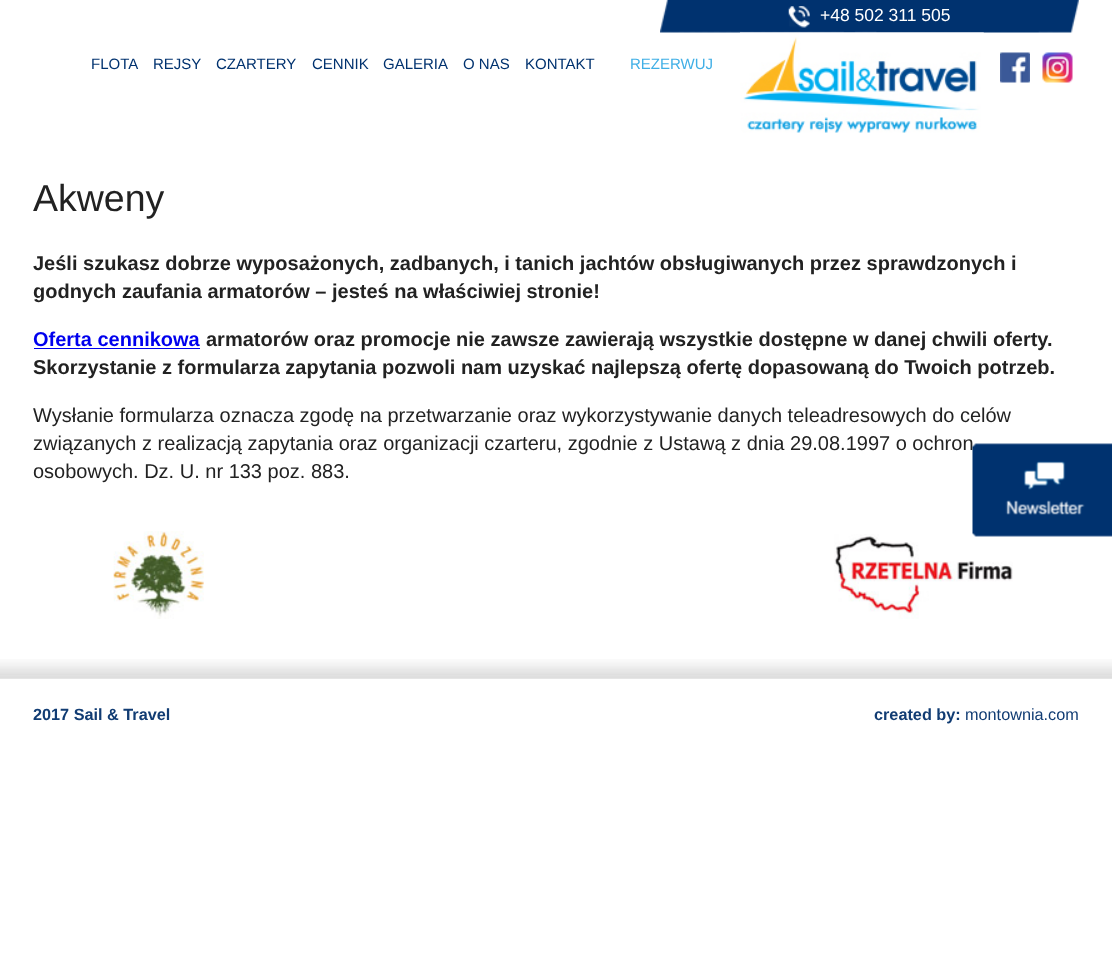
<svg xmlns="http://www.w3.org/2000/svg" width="1112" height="978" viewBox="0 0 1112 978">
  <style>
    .t1 { font: 17.5px Liberation Sans; fill: #fff; }
    .t2 { font: 15px Liberation Sans; fill: #00326f; }
    .t3 { font: 15px Liberation Sans; fill: #40afe6; }
    .t4 { font: 37.5px Liberation Sans; fill: #222; }
    .t5 { font: bold 20px Liberation Sans; fill: #222; }
    .t6 { font: bold 20px Liberation Sans; fill: #00e; }
    .t7 { font: 20px Liberation Sans; fill: #222; }
    .t8 { font: bold 16.25px Liberation Sans; fill: #113c73; }
    .t9 { font: 16.25px Liberation Sans; fill: #113c73; }
  </style>
  <rect width="100%" height="100%" fill="#fff"/>
  <image x="660" y="0" width="419" height="33" href="images/1.png"/>
  <image x="788" y="6" width="22" height="22" href="images/2.png"/>
  <text x="820" y="21" class="t1">+48 502 311 505</text>
  <text x="91" y="69" class="t2">FLOTA</text>
  <text x="153" y="69" class="t2">REJSY</text>
  <text x="216" y="69" class="t2">CZARTERY</text>
  <text x="312" y="69" class="t2">CENNIK</text>
  <text x="383" y="69" class="t2">GALERIA</text>
  <text x="463" y="69" class="t2">O NAS</text>
  <text x="525" y="69" class="t2">KONTAKT</text>
  <text x="630" y="69" class="t3">REZERWUJ</text>
  <image x="740" y="32" width="244" height="101" href="images/3.png"/>
  <image x="1000" y="52" width="30" height="31" href="images/4.png"/>
  <image x="1042" y="52" width="31" height="31" href="images/5.png"/>
  <text x="33" y="211" class="t4">Akweny</text>
  <text x="33" y="270" class="t5">Jeśli szukasz dobrze wyposażonych, zadbanych, i tanich jachtów obsługiwanych przez sprawdzonych i</text>
  <text x="33" y="298" class="t5">godnych zaufania armatorów – jesteś na właściwiej stronie!</text>
  <text x="33" y="346" class="t6">Oferta cennikowa</text>
  <rect x="34" y="348" width="166" height="1" fill="#00e"/>
  <text x="206" y="346" class="t5">armatorów oraz promocje nie zawsze zawierają wszystkie dostępne w danej chwili oferty.</text>
  <text x="33" y="374" class="t5">Skorzystanie z formularza zapytania pozwoli nam uzyskać najlepszą ofertę dopasowaną do Twoich potrzeb.</text>
  <text x="33" y="422" class="t7">Wysłanie formularza oznacza zgodę na przetwarzanie oraz wykorzystywanie danych teleadresowych do celów</text>
  <text x="33" y="450" class="t7">związanych z realizacją zapytania oraz organizacji czarteru, zgodnie z Ustawą z dnia 29.08.1997 o ochron</text>
  <text x="33" y="478" class="t7">osobowych. Dz. U. nr 133 poz. 883.</text>
  <image x="834" y="534" width="179" height="85" href="images/8.png"/>
  <image x="972" y="443" width="140" height="94" href="images/6.png"/>
  <image x="113" y="531" width="91" height="88" href="images/7.png"/>
  <image x="0" y="659" width="1112" height="20" href="images/9.png"/>
  <text x="33" y="720" class="t8">2017 Sail &amp; Travel</text>
  <text x="874" y="720" class="t8">created by:</text>
  <text x="965" y="720" class="t9">montownia.com</text>
</svg>
